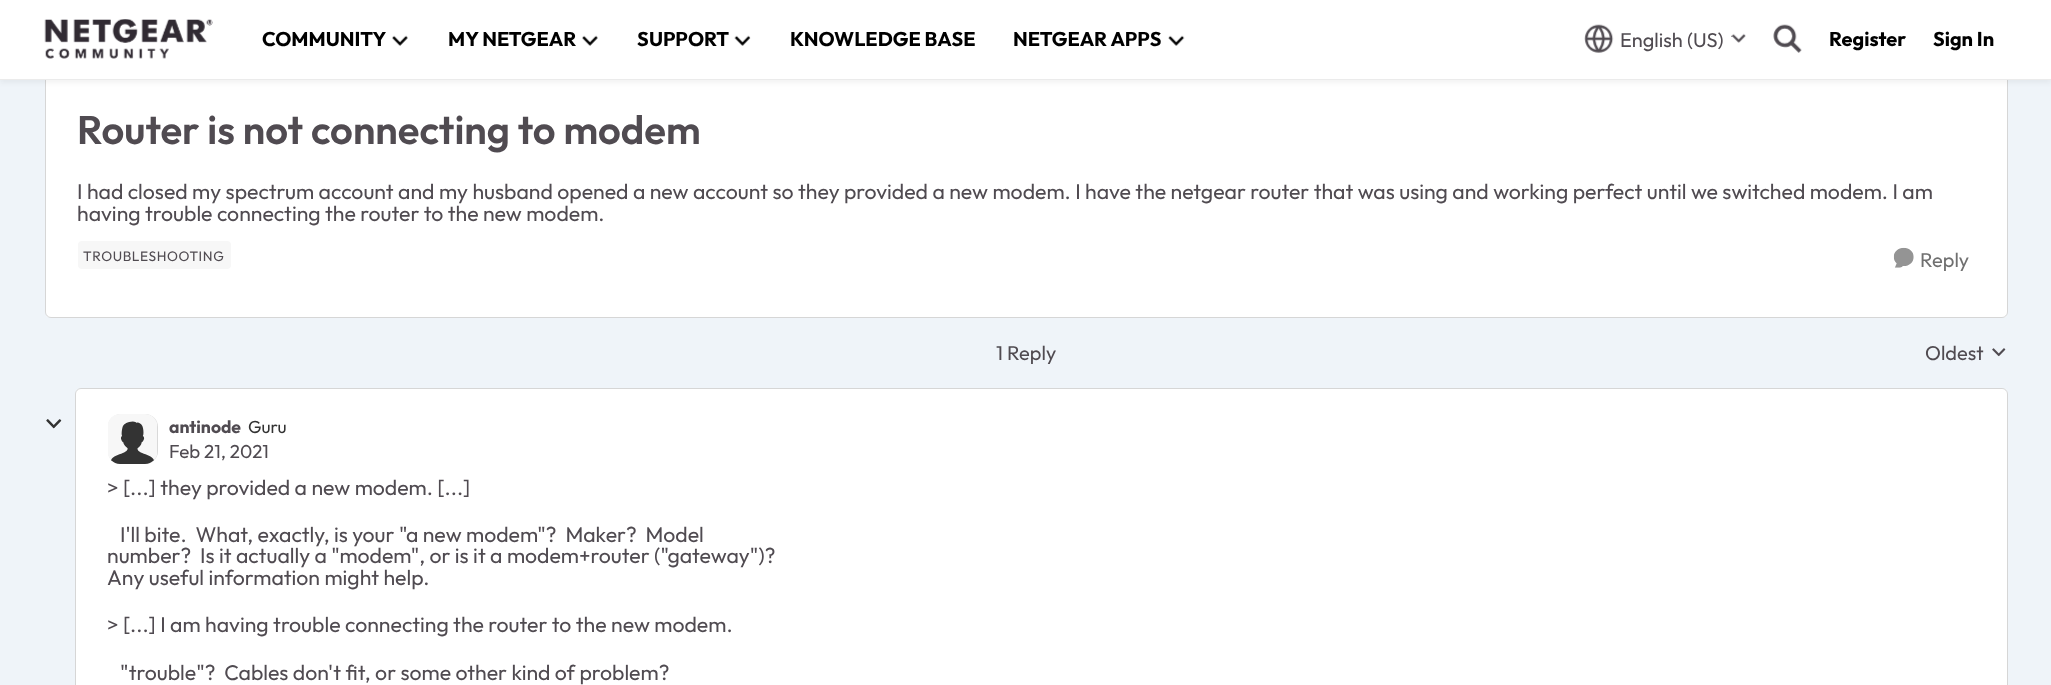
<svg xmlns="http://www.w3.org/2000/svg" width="2051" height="685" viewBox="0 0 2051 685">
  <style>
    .t1 { font: bold 20px Outfit; fill: #000; }
    .t2 { font: 20px Outfit; fill: #504b51; }
    .t3 { font: 600 40px Outfit; fill: #504b51; }
    .t4 { font: 21.25px Outfit; fill: #504b51; }
    .t5 { font: 13.75px Outfit; letter-spacing: 0.6px; fill: #504b51; }
    .t6 { font: 20px Outfit; fill: #707070; }
    .t7 { font: bold 17.5px Outfit; fill: #504b51; }
    .t8 { font: 17.5px Outfit; fill: #333; }
    .t9 { font: 18.75px Outfit; fill: #504b51; }
  </style>
  <rect width="100%" height="100%" fill="#eff4f9"/>
  <rect x="45" y="-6" width="1963" height="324" rx="6" fill="#fff"/>
  <rect x="45.5" y="-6.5" width="1962" height="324" rx="5.5" fill="none" stroke="#00000029"/>
  <rect x="0" y="3" width="2051" height="80" fill="#3333330f" filter="blur(2.5px)"/>
  <rect x="0" y="0" width="2051" height="79" fill="#fff"/>
  <rect x="0" y="79" width="2051" height="1" fill="#ebebeb"/>
  <image x="44" y="19" width="169" height="40" href="images/1.png"/>
  <text x="262" y="46" class="t1">COMMUNITY</text>
  <image x="392" y="35" width="16" height="11" href="images/2.png"/>
  <text x="448" y="46" class="t1">MY NETGEAR</text>
  <image x="582" y="35" width="16" height="11" href="images/2.png"/>
  <text x="637" y="46" class="t1">SUPPORT</text>
  <image x="734" y="35" width="17" height="11" href="images/3.png"/>
  <text x="790" y="46" class="t1">KNOWLEDGE BASE</text>
  <text x="1013" y="46" class="t1">NETGEAR APPS</text>
  <image x="1168" y="35" width="17" height="11" href="images/4.png"/>
  <image x="1584" y="24" width="30" height="29" href="images/5.png"/>
  <text x="1620" y="47" class="t2">English (US)</text>
  <image x="1731" y="33" width="15" height="10" href="images/6.png"/>
  <image x="1773" y="24" width="29" height="29" href="images/7.png"/>
  <text x="1829" y="46" class="t1">Register</text>
  <text x="1933" y="46" class="t1">Sign In</text>
  <text x="77" y="144" class="t3">Router is not connecting to modem</text>
  <text x="77" y="199" class="t4">I had closed my spectrum account and my husband opened a new account so they provided a new modem. I have the netgear router that was using and working perfect until we switched modem. I am</text>
  <text x="77" y="221" class="t4">having trouble connecting the router to the new modem.</text>
  <rect x="78" y="241" width="153" height="28" rx="4" fill="#f7f7f7"/>
  <text x="83" y="261" class="t5">TROUBLESHOOTING</text>
  <image x="1893" y="247" width="21" height="21" href="images/8.png"/>
  <text x="1920" y="267" class="t6">Reply</text>
  <text x="996" y="360" class="t2">1 Reply</text>
  <text x="1925" y="360" class="t2">Oldest</text>
  <image x="1992" y="348" width="14" height="9" href="images/9.png"/>
  <image x="46" y="419" width="16" height="10" href="images/10.png"/>
  <rect x="75" y="388" width="1933" height="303" rx="6" fill="#fff"/>
  <rect x="75.5" y="388.5" width="1932" height="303" rx="5.5" fill="none" stroke="#00000029"/>
  <rect x="108" y="414" width="50" height="50" rx="13" fill="#d9d9d9"/>
  <image x="108" y="414" width="49" height="50" href="images/11.png"/>
  <text x="169" y="433" class="t7">antinode</text>
  <text x="248" y="433" class="t8">Guru</text>
  <text x="169" y="458" class="t9">Feb 21, 2021</text>
  <text x="107" y="495" class="t4">&gt; [...] they provided a new modem. [...]</text>
  <text x="120" y="542" class="t4" xml:space="preserve">I'll bite.  What, exactly, is your "a new modem"?  Maker?  Model</text>
  <text x="107" y="563" class="t4" xml:space="preserve">number?  Is it actually a "modem", or is it a modem+router ("gateway")?</text>
  <text x="107" y="585" class="t4">Any useful information might help.</text>
  <text x="107" y="632" class="t4">&gt; [...] I am having trouble connecting the router to the new modem.</text>
  <text x="120" y="680" class="t4" xml:space="preserve">"trouble"?  Cables don't fit, or some other kind of problem?</text>
</svg>
